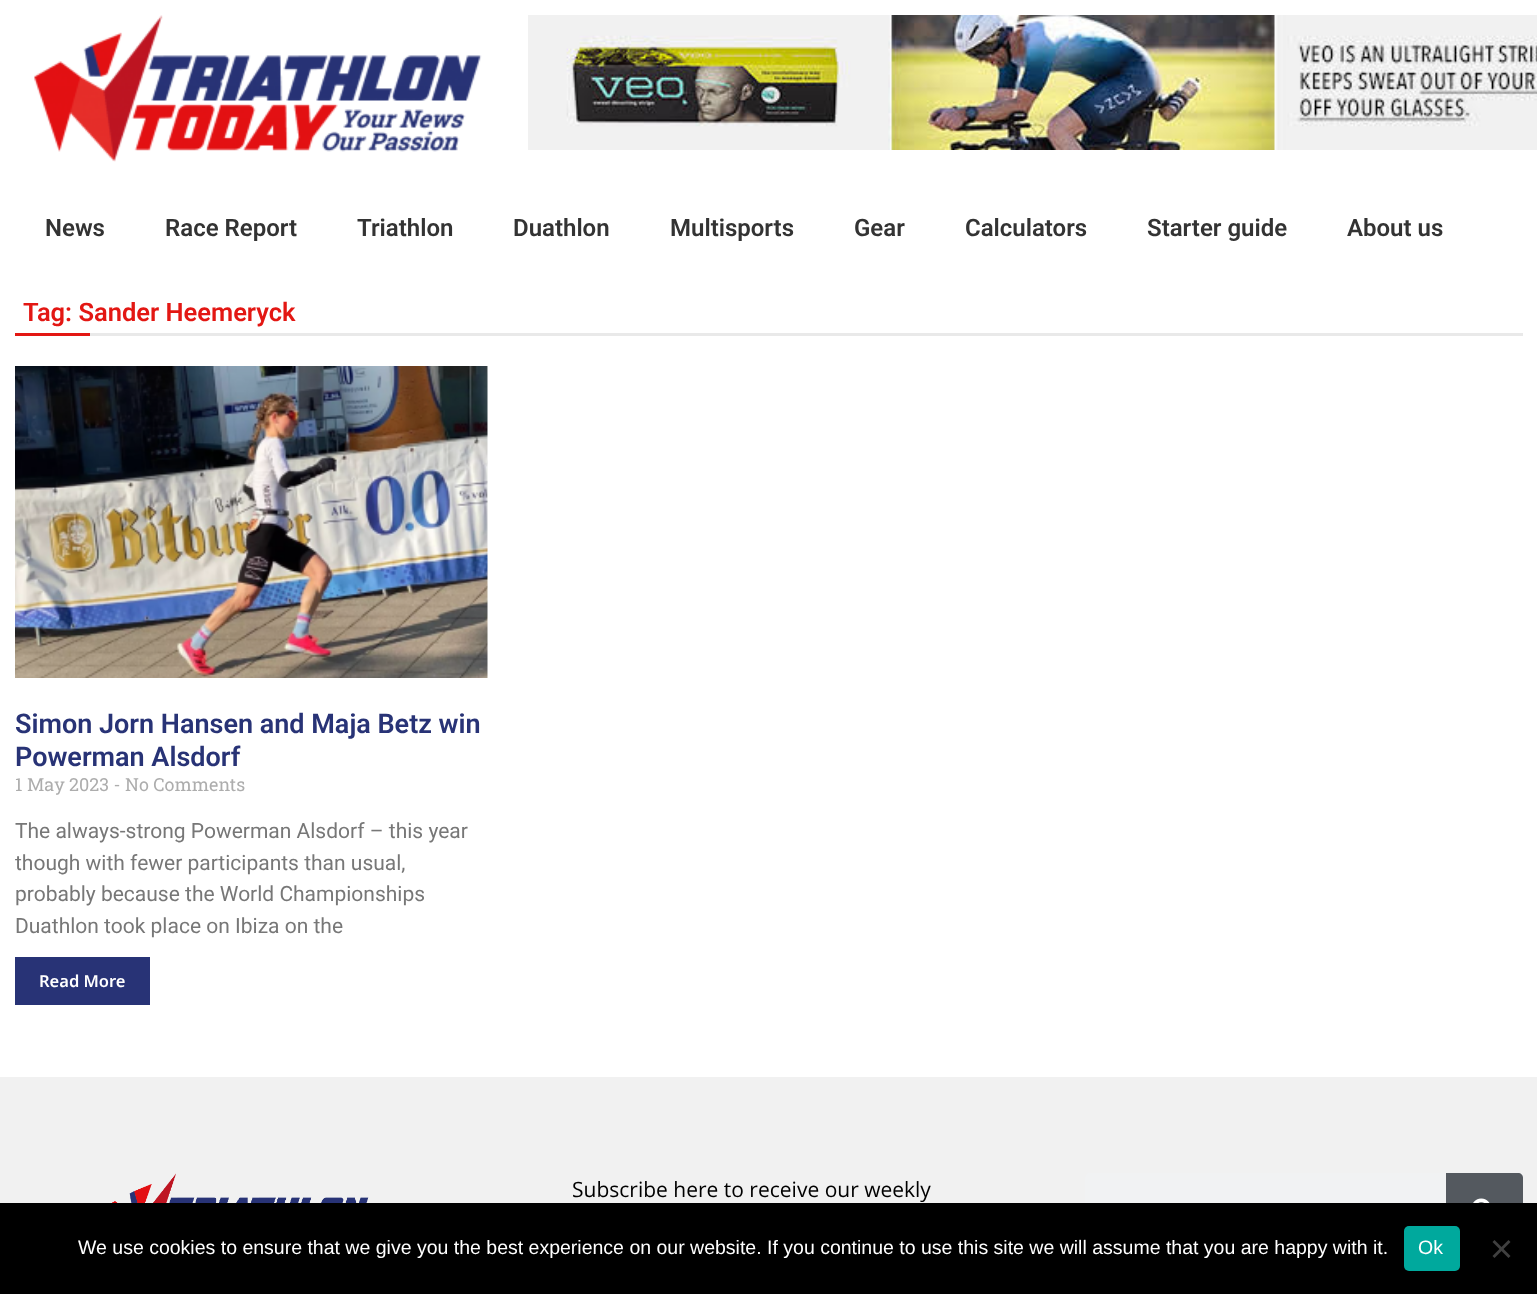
<svg xmlns="http://www.w3.org/2000/svg" width="1537" height="1294" viewBox="0 0 1537 1294">
  <style>
    .t1 { font: 600 24px Roboto; fill: #333; }
    .t2 { font: 600 25.5px Roboto; fill: #e31713; }
    .t3 { font: 600 27px Roboto; fill: #283376; }
    .t4 { font: 18px Roboto Slab; fill: #adadad; }
    .t5 { font: 21px Roboto; fill: #777; }
    .t6 { font: 600 16.5px Noto Sans; fill: #fff; }
    .t7 { font: 21px Open Sans; fill: #000; }
    .t8 { font: 19.5px Liberation Sans; fill: #fff; }
  </style>
  <rect width="100%" height="100%" fill="#fff"/>
  <image x="34" y="15" width="448" height="147" href="images/1.png"/>
  <image x="528" y="15" width="1009" height="135" href="images/2.png"/>
  <text x="45" y="236" class="t1">News</text>
  <text x="165" y="236" class="t1">Race Report</text>
  <text x="357" y="236" class="t1">Triathlon</text>
  <text x="513" y="236" class="t1">Duathlon</text>
  <text x="670" y="236" class="t1">Multisports</text>
  <text x="854" y="236" class="t1">Gear</text>
  <text x="965" y="236" class="t1">Calculators</text>
  <text x="1147" y="236" class="t1">Starter guide</text>
  <text x="1347" y="236" class="t1">About us</text>
  <rect x="90" y="333" width="1433" height="3" fill="#e9e9e9"/>
  <text x="23" y="321" class="t2">Tag: Sander Heemeryck</text>
  <rect x="15" y="333" width="75" height="3" fill="#e31713"/>
  <image x="15" y="366" width="473" height="312" href="images/3.png"/>
  <text x="15" y="733" class="t3">Simon Jorn Hansen and Maja Betz win</text>
  <text x="15" y="766" class="t3">Powerman Alsdorf</text>
  <text x="15" y="791" class="t4">1 May 2023 - No Comments</text>
  <text x="15" y="838" class="t5">The always-strong Powerman Alsdorf – this year</text>
  <text x="15" y="870" class="t5">though with fewer participants than usual,</text>
  <text x="15" y="901" class="t5">probably because the World Championships</text>
  <text x="15" y="933" class="t5">Duathlon took place on Ibiza on the</text>
  <rect x="15" y="957" width="135" height="48" fill="#283376"/>
  <text x="39" y="987" class="t6">Read More</text>
  <rect x="0" y="1077" width="1537" height="126" fill="#f1f1f1"/>
  <image x="112" y="1173" width="257" height="30" href="images/4.png"/>
  <text x="572" y="1197" class="t7">Subscribe here to receive our weekly</text>
  <rect x="1085" y="1173" width="438" height="77" rx="5" fill="#f1f2f3"/>
  <path d="M1446 1173H1518C1521 1173 1523 1175 1523 1178V1245C1523 1248 1521 1250 1518 1250H1446Z" fill="#54595f"/>
  <image x="1473" y="1198" width="17" height="5" href="images/5.png"/>
  <rect x="0" y="1203" width="1537" height="91" fill="#000"/>
  <text x="78" y="1254" class="t8">We use cookies to ensure that we give you the best experience on our website. If you continue to use this site we will assume that you are happy with it.</text>
  <rect x="1404" y="1226" width="56" height="45" rx="5" fill="#00a99d"/>
  <text x="1418" y="1254" class="t8">Ok</text>
  <path d="M1508.5 1240L1510.5 1242L1494.5 1258L1492.5 1256Z" fill="#404040"/>
  <path d="M1492.5 1242L1494.5 1240L1510.5 1256L1508.5 1258Z" fill="#404040"/>
</svg>
